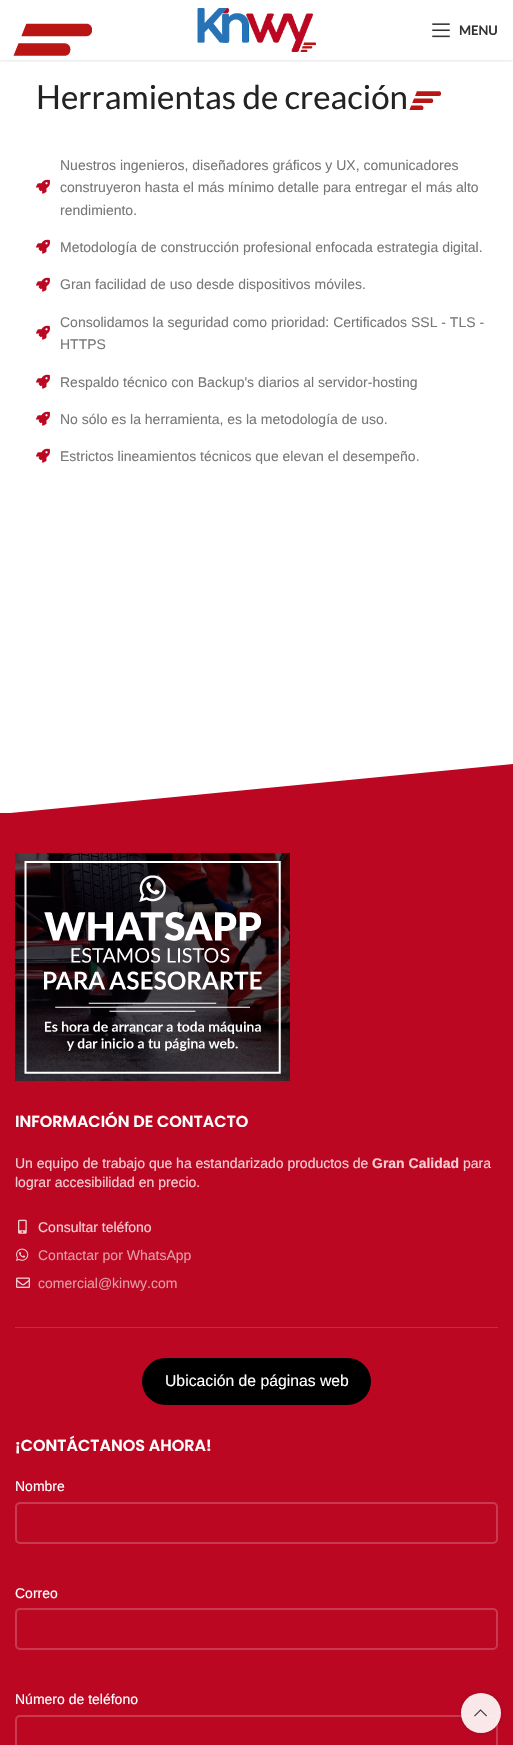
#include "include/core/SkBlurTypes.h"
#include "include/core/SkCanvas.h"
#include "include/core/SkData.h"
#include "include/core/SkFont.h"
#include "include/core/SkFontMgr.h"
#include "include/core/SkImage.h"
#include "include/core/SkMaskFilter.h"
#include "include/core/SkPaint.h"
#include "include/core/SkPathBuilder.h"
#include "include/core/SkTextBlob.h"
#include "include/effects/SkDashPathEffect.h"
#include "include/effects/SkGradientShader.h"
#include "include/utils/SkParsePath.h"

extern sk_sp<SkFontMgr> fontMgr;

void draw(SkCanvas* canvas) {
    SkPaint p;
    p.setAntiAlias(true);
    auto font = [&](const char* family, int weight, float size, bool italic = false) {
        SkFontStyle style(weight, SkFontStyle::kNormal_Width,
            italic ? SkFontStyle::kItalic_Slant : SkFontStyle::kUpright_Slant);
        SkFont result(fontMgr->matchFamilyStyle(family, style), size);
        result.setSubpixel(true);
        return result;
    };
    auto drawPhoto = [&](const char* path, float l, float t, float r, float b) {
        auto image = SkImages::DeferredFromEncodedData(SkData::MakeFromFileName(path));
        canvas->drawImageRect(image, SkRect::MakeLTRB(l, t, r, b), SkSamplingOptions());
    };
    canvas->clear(0xFFFFFFFF);
    canvas->save();
    canvas->clipRect(SkRect::MakeLTRB(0, 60, 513, 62));
    p.setColor(0x1A000000);
    p.setMaskFilter(SkMaskFilter::MakeBlur(kNormal_SkBlurStyle, 1.5f));
    canvas->drawRect(SkRect::MakeLTRB(0, 1, 513, 61), p);
    p.setMaskFilter(nullptr);
    canvas->restore();
    drawPhoto("media/1.png", 13, 23, 92, 56);
    drawPhoto("media/2.png", 197, 8, 316, 52);
    drawPhoto("media/3.png", 432, 23, 450, 38);
    auto font1 = font("Lato", 700, 13);
    p.setColor(0xFF333333);
    canvas->drawString("MENU", 459, 35, font1, p);
    auto font2 = font("Lato", 400, 33);
    p.setColor(0xFF232323);
    canvas->drawString("Herramientas de creación", 36, 109, font2, p);
    drawPhoto("media/4.png", 409, 91, 441, 110);
    drawPhoto("media/5.png", 36, 179, 50, 194);
    auto font3 = font("Liberation Sans", 400, 14);
    p.setColor(0xFF777777);
    {
        const struct { const char* s; float x, y; } items[] = {
            {"Nuestros ingenieros, diseñadores gráficos y UX, comunicadores", 60, 170},
            {"construyeron hasta el más mínimo detalle para entregar el más alto", 60, 192},
            {"rendimiento.", 60, 215},
        };
        for (auto [s, x, y] : items) {
            canvas->drawString(s, x, y, font3, p);
        }
    }
    drawPhoto("media/5.png", 36, 239, 50, 254);
    canvas->drawString("Metodología de construcción profesional enfocada estrategia digital.", 60, 252, font3, p);
    drawPhoto("media/5.png", 36, 277, 50, 292);
    canvas->drawString("Gran facilidad de uso desde dispositivos móviles.", 60, 289, font3, p);
    drawPhoto("media/5.png", 36, 325, 50, 340);
    canvas->drawString("Consolidamos la seguridad como prioridad: Certificados SSL - TLS -", 60, 327, font3, p);
    canvas->drawString("HTTPS", 60, 349, font3, p);
    drawPhoto("media/5.png", 36, 374, 50, 389);
    canvas->drawString("Respaldo técnico con Backup's diarios al servidor-hosting", 60, 387, font3, p);
    drawPhoto("media/5.png", 36, 411, 50, 426);
    canvas->drawString("No sólo es la herramienta, es la metodología de uso.", 60, 424, font3, p);
    drawPhoto("media/5.png", 36, 448, 50, 463);
    canvas->drawString("Estrictos lineamientos técnicos que elevan el desempeño.", 60, 461, font3, p);
    canvas->save();
    canvas->clipRect(SkRect::MakeLTRB(0, 764, 513, 813));
    p.setColor(0xFFBC0723);
    canvas->drawPath(SkPathBuilder().moveTo(0, 814).lineTo(513, 764).lineTo(513, 814).close().detach(), p);
    canvas->restore();
    canvas->drawRect(SkRect::MakeLTRB(0, 813, 513, 1745), p);
    drawPhoto("media/6.png", 15, 853, 290, 1081);
    p.setColor(0xFFC62C44);
    canvas->drawRect(SkRect::MakeLTRB(15, 1327, 498, 1328), p);
    auto font4 = font("Poppins", 600, 16);
    p.setColor(0xFFFFFFFF);
    canvas->drawString("INFORMACIÓN DE CONTACTO", 15, 1127, font4, p);
    p.setColor(0xFFF2CDD3);
    canvas->drawString("Un equipo de trabajo que ha estandarizado productos de", 15, 1168, font3, p);
    auto font5 = font("Liberation Sans", 700, 14);
    canvas->drawString("Gran Calidad", 372, 1168, font5, p);
    canvas->drawString("para", 463, 1168, font3, p);
    canvas->drawString("lograr accesibilidad en precio.", 15, 1187, font3, p);
    drawPhoto("media/7.png", 18, 1219, 27, 1234);
    canvas->drawString("Consultar teléfono", 38, 1232, font3, p);
    drawPhoto("media/8.png", 16, 1248, 29, 1261);
    p.setColor(0xFFE49CA7);
    canvas->drawString("Contactar por WhatsApp", 38, 1260, font3, p);
    drawPhoto("media/9.png", 16, 1277, 30, 1288);
    canvas->drawString("comercial@kinwy.com", 38, 1288, font3, p);
    p.setColor(0xFF000000);
    canvas->drawRoundRect(SkRect::MakeLTRB(142, 1358, 371, 1405), 23.5f, 23.5f, p);
    auto font6 = font("Liberation Sans", 400, 15.75f);
    p.setColor(0xFFFFFFFF);
    canvas->drawString("Ubicación de páginas web", 165, 1386, font6, p);
    canvas->drawString("¡CONTÁCTANOS AHORA!", 15, 1451, font4, p);
    canvas->drawString("Nombre", 15, 1491, font3, p);
    p.setStyle(SkPaint::kStroke_Style);
    p.setStrokeWidth(2);
    p.setColor(0xFFC9394F);
    canvas->drawRoundRect(SkRect::MakeLTRB(16, 1503, 497, 1543), 4, 4, p);
    p.setStyle(SkPaint::kFill_Style);
    p.setColor(0xFFFFFFFF);
    canvas->drawString("Correo", 15, 1598, font3, p);
    p.setStyle(SkPaint::kStroke_Style);
    p.setColor(0xFFC9394F);
    canvas->drawRoundRect(SkRect::MakeLTRB(16, 1609, 497, 1649), 4, 4, p);
    p.setStyle(SkPaint::kFill_Style);
    p.setColor(0xFFFFFFFF);
    canvas->drawString("Número de teléfono", 15, 1704, font3, p);
    p.setStyle(SkPaint::kStroke_Style);
    p.setColor(0xFFC9394F);
    canvas->drawRoundRect(SkRect::MakeLTRB(16, 1716, 497, 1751), 4, 4, p);
    canvas->save();
    canvas->clipPath(SkPathBuilder(SkPathFillType::kEvenOdd).moveTo(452, 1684).lineTo(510, 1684).lineTo(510, 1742).lineTo(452, 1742).close().moveTo(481, 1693).cubicTo(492, 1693, 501, 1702, 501, 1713).cubicTo(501, 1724, 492, 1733, 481, 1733).cubicTo(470, 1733, 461, 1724, 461, 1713).cubicTo(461, 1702, 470, 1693, 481, 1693).close().detach(), true);
    p.setStyle(SkPaint::kFill_Style);
    p.setColor(0x2B000000);
    p.setMaskFilter(SkMaskFilter::MakeBlur(kNormal_SkBlurStyle, 2.5f));
    canvas->drawRoundRect(SkRect::MakeLTRB(461, 1693, 501, 1733), 20, 20, p);
    p.setMaskFilter(nullptr);
    canvas->restore();
    p.setColor(0xE6FFFFFF);
    canvas->drawCircle(481, 1713, 20, p);
    drawPhoto("media/10.png", 474, 1709, 487, 1717);
}
